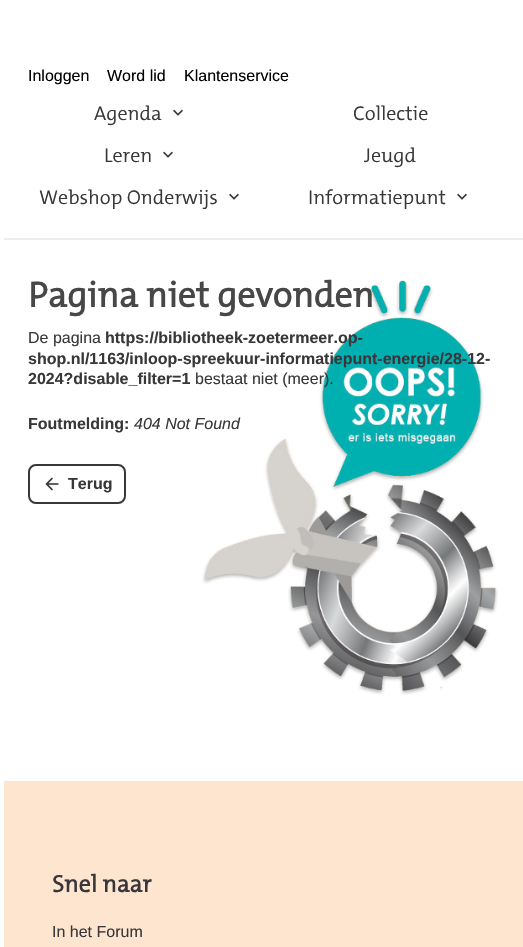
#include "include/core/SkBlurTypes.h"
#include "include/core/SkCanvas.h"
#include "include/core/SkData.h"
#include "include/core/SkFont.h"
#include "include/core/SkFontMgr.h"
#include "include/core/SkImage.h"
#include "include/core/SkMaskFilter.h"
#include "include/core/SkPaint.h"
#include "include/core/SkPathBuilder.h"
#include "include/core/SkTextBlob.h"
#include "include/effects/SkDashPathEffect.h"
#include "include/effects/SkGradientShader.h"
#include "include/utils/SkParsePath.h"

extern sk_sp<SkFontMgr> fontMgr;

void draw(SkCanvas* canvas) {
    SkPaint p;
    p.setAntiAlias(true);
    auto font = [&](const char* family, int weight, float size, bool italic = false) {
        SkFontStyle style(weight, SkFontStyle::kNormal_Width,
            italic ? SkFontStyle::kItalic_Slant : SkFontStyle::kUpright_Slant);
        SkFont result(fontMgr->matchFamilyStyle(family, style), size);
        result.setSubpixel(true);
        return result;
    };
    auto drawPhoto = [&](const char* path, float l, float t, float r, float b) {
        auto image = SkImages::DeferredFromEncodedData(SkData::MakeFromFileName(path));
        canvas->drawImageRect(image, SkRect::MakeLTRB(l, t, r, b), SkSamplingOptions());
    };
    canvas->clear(0xFFFFFFFF);
    p.setColor(0xFFEDEDED);
    canvas->drawRect(SkRect::MakeLTRB(4, 238, 523, 240), p);
    auto font1 = font("Liberation Sans", 400, 16);
    p.setColor(0xFF000000);
    {
        const struct { const char* s; float x, y; } items[] = {
            {"Inloggen", 28, 81},
            {"Word lid", 107, 81},
            {"Klantenservice", 184, 81},
        };
        for (auto [s, x, y] : items) {
            canvas->drawString(s, x, y, font1, p);
        }
    }
    auto font2 = font("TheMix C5", 300, 20);
    p.setColor(0xFF39373A);
    canvas->drawString("Agenda", 94, 120, font2, p);
    drawPhoto("media/1.png", 173, 109, 183, 116);
    canvas->drawString("Collectie", 353, 120, font2, p);
    canvas->drawString("Leren", 104, 162, font2, p);
    drawPhoto("media/1.png", 163, 151, 173, 158);
    canvas->drawString("Jeugd", 364, 162, font2, p);
    canvas->drawString("Webshop Onderwijs", 39, 204, font2, p);
    drawPhoto("media/1.png", 229, 193, 239, 200);
    canvas->drawString("Informatiepunt", 308, 204, font2, p);
    drawPhoto("media/1.png", 457, 193, 467, 200);
    drawPhoto("media/2.png", 202, 280, 498, 695);
    auto font3 = font("TheMix C5", 700, 36);
    p.setColor(0xFF474747);
    canvas->drawString("Pagina niet gevonden", 28, 307, font3, p);
    p.setColor(0xFF39373A);
    canvas->drawString("De pagina", 28, 343, font1, p);
    auto font4 = font("Liberation Sans", 700, 16);
    {
        const struct { const char* s; float x, y; } items[] = {
            {"https://bibliotheek-zoetermeer.op-", 105, 343},
            {"shop.nl/1163/inloop-spreekuur-informatiepunt-energie/28-12-", 28, 364},
            {"2024?disable_filter=1", 28, 384},
        };
        for (auto [s, x, y] : items) {
            canvas->drawString(s, x, y, font4, p);
        }
    }
    canvas->drawString("bestaat niet (meer).", 195, 384, font1, p);
    canvas->drawString("Foutmelding:", 28, 429, font4, p);
    auto font5 = font("Liberation Sans", 400, 16, true);
    canvas->drawString("404 Not Found", 134, 429, font5, p);
    p.setStyle(SkPaint::kStroke_Style);
    p.setStrokeWidth(2);
    canvas->drawRoundRect(SkRect::MakeLTRB(29, 465, 125, 503), 7, 7, p);
    drawPhoto("media/3.png", 45, 477, 59, 491);
    p.setStyle(SkPaint::kFill_Style);
    canvas->drawString("Terug", 68, 489, font4, p);
    p.setColor(0xFFFDE5D0);
    canvas->drawRect(SkRect::MakeLTRB(4, 781, 523, 947), p);
    auto font6 = font("TheMix C5", 700, 24);
    p.setColor(0xFF39373A);
    canvas->drawString("Snel naar", 52, 892, font6, p);
    canvas->drawString("In het Forum", 52, 937, font1, p);
}
